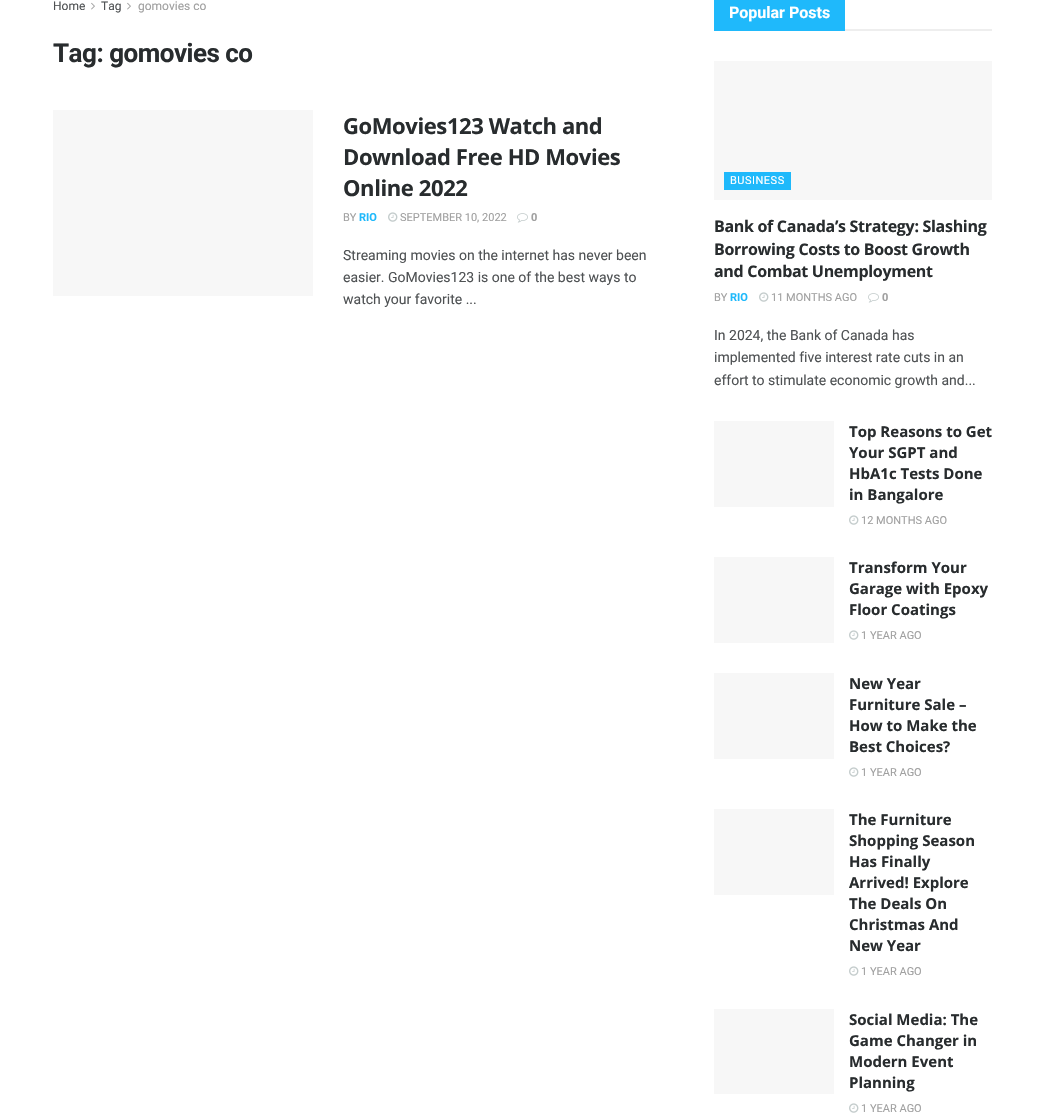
#include "include/core/SkBlurTypes.h"
#include "include/core/SkCanvas.h"
#include "include/core/SkData.h"
#include "include/core/SkFont.h"
#include "include/core/SkFontMgr.h"
#include "include/core/SkImage.h"
#include "include/core/SkMaskFilter.h"
#include "include/core/SkPaint.h"
#include "include/core/SkPathBuilder.h"
#include "include/core/SkTextBlob.h"
#include "include/effects/SkDashPathEffect.h"
#include "include/effects/SkGradientShader.h"
#include "include/utils/SkParsePath.h"

extern sk_sp<SkFontMgr> fontMgr;

void draw(SkCanvas* canvas) {
    SkPaint p;
    p.setAntiAlias(true);
    auto font = [&](const char* family, int weight, float size, bool italic = false) {
        SkFontStyle style(weight, SkFontStyle::kNormal_Width,
            italic ? SkFontStyle::kItalic_Slant : SkFontStyle::kUpright_Slant);
        SkFont result(fontMgr->matchFamilyStyle(family, style), size);
        result.setSubpixel(true);
        return result;
    };
    auto drawTracked = [&](const char* s, float x, float y, const SkFont& font, const SkPaint& ink, float letter, float word) {
        std::vector<SkGlyphID> glyphs(font.countText(s, strlen(s), SkTextEncoding::kUTF8));
        std::vector<float> xs(glyphs.size());
        font.textToGlyphs(s, strlen(s), SkTextEncoding::kUTF8, glyphs);
        font.getXPos(glyphs, xs, x);
        float extra = 0;
        for (size_t i = 0; i < glyphs.size(); i++) {
            xs[i] += extra;
            extra += letter + word * (glyphs[i] == font.unicharToGlyph(' '));
        }
        canvas->drawTextBlob(SkTextBlob::MakeFromPosHGlyphs(glyphs, xs, y, font), 0, 0, ink);
    };
    auto drawPhoto = [&](const char* path, float l, float t, float r, float b) {
        auto image = SkImages::DeferredFromEncodedData(SkData::MakeFromFileName(path));
        canvas->drawImageRect(image, SkRect::MakeLTRB(l, t, r, b), SkSamplingOptions());
    };
    canvas->clear(0xFFFFFFFF);
    auto font1 = font("Roboto", 400, 12);
    p.setColor(0xFF4F5254);
    canvas->drawString("Home", 53, 10, font1, p);
    drawPhoto("media/1.png", 91, 2, 95, 10);
    canvas->drawString("Tag", 101, 10, font1, p);
    drawPhoto("media/1.png", 127, 2, 131, 10);
    p.setColor(0xFFA0A0A0);
    canvas->drawString("gomovies co", 138, 10, font1, p);
    auto font2 = font("Roboto", 700, 26);
    p.setColor(0xFF282C2E);
    drawTracked("Tag: gomovies co", 53, 62, font2, p, -0.5f, 0);
    p.setColor(0xFFF7F7F7);
    canvas->drawRect(SkRect::MakeLTRB(53, 110, 313, 296), p);
    auto font3 = font("Open Sans", 700, 22);
    p.setColor(0xFF282C2E);
    {
        const struct { const char* s; float x, y; } items[] = {
            {"GoMovies123 Watch and", 343, 134},
            {"Download Free HD Movies", 343, 165},
            {"Online 2022", 343, 196},
        };
        for (auto [s, x, y] : items) {
            drawTracked(s, x, y, font3, p, -0.4f, 0);
        }
    }
    auto font4 = font("Roboto", 400, 11);
    p.setColor(0xFFA0A0A0);
    canvas->drawString("BY", 343, 221, font4, p);
    auto font5 = font("Roboto", 700, 11);
    p.setColor(0xFF1FB9FB);
    canvas->drawString("RIO", 359, 221, font5, p);
    drawPhoto("media/2.png", 388, 212, 398, 222);
    p.setColor(0xFFA0A0A0);
    canvas->drawString("SEPTEMBER 10, 2022", 400, 221, font4, p);
    drawPhoto("media/3.png", 517, 213, 528, 223);
    canvas->drawString("0", 531, 221, font5, p);
    auto font6 = font("Roboto", 400, 14);
    p.setColor(0xFF4F5254);
    {
        const struct { const char* s; float x, y; } items[] = {
            {"Streaming movies on the internet has never been", 343, 260},
            {"easier. GoMovies123 is one of the best ways to", 343, 282},
            {"watch your favorite ...", 343, 304},
        };
        for (auto [s, x, y] : items) {
            canvas->drawString(s, x, y, font6, p);
        }
    }
    p.setColor(0xFFEEEEEE);
    canvas->drawRect(SkRect::MakeLTRB(845, 29, 992, 31), p);
    p.setColor(0xFF1FB9FB);
    canvas->drawRect(SkRect::MakeLTRB(714, 0, 845, 31), p);
    auto font7 = font("Roboto", 700, 16);
    p.setColor(0xFFFFFFFF);
    canvas->drawString("Popular Posts", 729, 18, font7, p);
    p.setColor(0xFFF7F7F7);
    canvas->drawRect(SkRect::MakeLTRB(714, 61, 992, 200), p);
    p.setColor(0xFF1FB9FB);
    canvas->drawRect(SkRect::MakeLTRB(724, 172, 791, 190), p);
    p.setColor(0xFFFFFFFF);
    drawTracked("BUSINESS", 730, 184, font4, p, 0.5f, 0);
    auto font8 = font("Open Sans", 700, 16);
    p.setColor(0xFF282C2E);
    {
        const struct { const char* s; float x, y; } items[] = {
            {"Bank of Canada’s Strategy: Slashing", 714, 232},
            {"Borrowing Costs to Boost Growth", 714, 255},
            {"and Combat Unemployment", 714, 277},
        };
        for (auto [s, x, y] : items) {
            drawTracked(s, x, y, font8, p, -0.3f, 0);
        }
    }
    p.setColor(0xFFA0A0A0);
    canvas->drawString("BY", 714, 301, font4, p);
    p.setColor(0xFF1FB9FB);
    canvas->drawString("RIO", 730, 301, font5, p);
    drawPhoto("media/2.png", 759, 292, 769, 302);
    p.setColor(0xFFA0A0A0);
    canvas->drawString("11 MONTHS AGO", 771, 301, font4, p);
    drawPhoto("media/3.png", 868, 293, 879, 303);
    canvas->drawString("0", 882, 301, font5, p);
    p.setColor(0xFF4F5254);
    {
        const struct { const char* s; float x, y; } items[] = {
            {"In 2024, the Bank of Canada has", 714, 340},
            {"implemented five interest rate cuts in an", 714, 362},
            {"effort to stimulate economic growth and...", 714, 385},
        };
        for (auto [s, x, y] : items) {
            canvas->drawString(s, x, y, font6, p);
        }
    }
    p.setColor(0xFFF7F7F7);
    canvas->drawRect(SkRect::MakeLTRB(714, 421, 834, 507), p);
    auto font9 = font("Open Sans", 700, 15);
    p.setColor(0xFF282C2E);
    {
        const struct { const char* s; float x, y; } items[] = {
            {"Top Reasons to Get", 849, 437},
            {"Your SGPT and", 849, 458},
            {"HbA1c Tests Done", 849, 479},
            {"in Bangalore", 849, 500},
        };
        for (auto [s, x, y] : items) {
            canvas->drawString(s, x, y, font9, p);
        }
    }
    drawPhoto("media/2.png", 849, 515, 859, 525);
    p.setColor(0xFFA0A0A0);
    canvas->drawString("12 MONTHS AGO", 861, 524, font4, p);
    p.setColor(0xFFF7F7F7);
    canvas->drawRect(SkRect::MakeLTRB(714, 557, 834, 643), p);
    p.setColor(0xFF282C2E);
    {
        const struct { const char* s; float x, y; } items[] = {
            {"Transform Your", 849, 573},
            {"Garage with Epoxy", 849, 594},
            {"Floor Coatings", 849, 615},
        };
        for (auto [s, x, y] : items) {
            canvas->drawString(s, x, y, font9, p);
        }
    }
    drawPhoto("media/2.png", 849, 630, 859, 640);
    p.setColor(0xFFA0A0A0);
    canvas->drawString("1 YEAR AGO", 861, 639, font4, p);
    p.setColor(0xFFF7F7F7);
    canvas->drawRect(SkRect::MakeLTRB(714, 673, 834, 759), p);
    p.setColor(0xFF282C2E);
    {
        const struct { const char* s; float x, y; } items[] = {
            {"New Year", 849, 689},
            {"Furniture Sale –", 849, 710},
            {"How to Make the", 849, 731},
            {"Best Choices?", 849, 752},
        };
        for (auto [s, x, y] : items) {
            canvas->drawString(s, x, y, font9, p);
        }
    }
    drawPhoto("media/2.png", 849, 767, 859, 777);
    p.setColor(0xFFA0A0A0);
    canvas->drawString("1 YEAR AGO", 861, 776, font4, p);
    p.setColor(0xFFF7F7F7);
    canvas->drawRect(SkRect::MakeLTRB(714, 809, 834, 895), p);
    p.setColor(0xFF282C2E);
    {
        const struct { const char* s; float x, y; } items[] = {
            {"The Furniture", 849, 825},
            {"Shopping Season", 849, 846},
            {"Has Finally", 849, 867},
            {"Arrived! Explore", 849, 888},
            {"The Deals On", 849, 909},
            {"Christmas And", 849, 930},
            {"New Year", 849, 951},
        };
        for (auto [s, x, y] : items) {
            canvas->drawString(s, x, y, font9, p);
        }
    }
    drawPhoto("media/2.png", 849, 966, 859, 976);
    p.setColor(0xFFA0A0A0);
    canvas->drawString("1 YEAR AGO", 861, 975, font4, p);
    p.setColor(0xFFF7F7F7);
    canvas->drawRect(SkRect::MakeLTRB(714, 1009, 834, 1094), p);
    p.setColor(0xFF282C2E);
    {
        const struct { const char* s; float x, y; } items[] = {
            {"Social Media: The", 849, 1025},
            {"Game Changer in", 849, 1046},
            {"Modern Event", 849, 1067},
            {"Planning", 849, 1088},
        };
        for (auto [s, x, y] : items) {
            canvas->drawString(s, x, y, font9, p);
        }
    }
    drawPhoto("media/2.png", 849, 1103, 859, 1113);
    p.setColor(0xFFA0A0A0);
    canvas->drawString("1 YEAR AGO", 861, 1112, font4, p);
}
